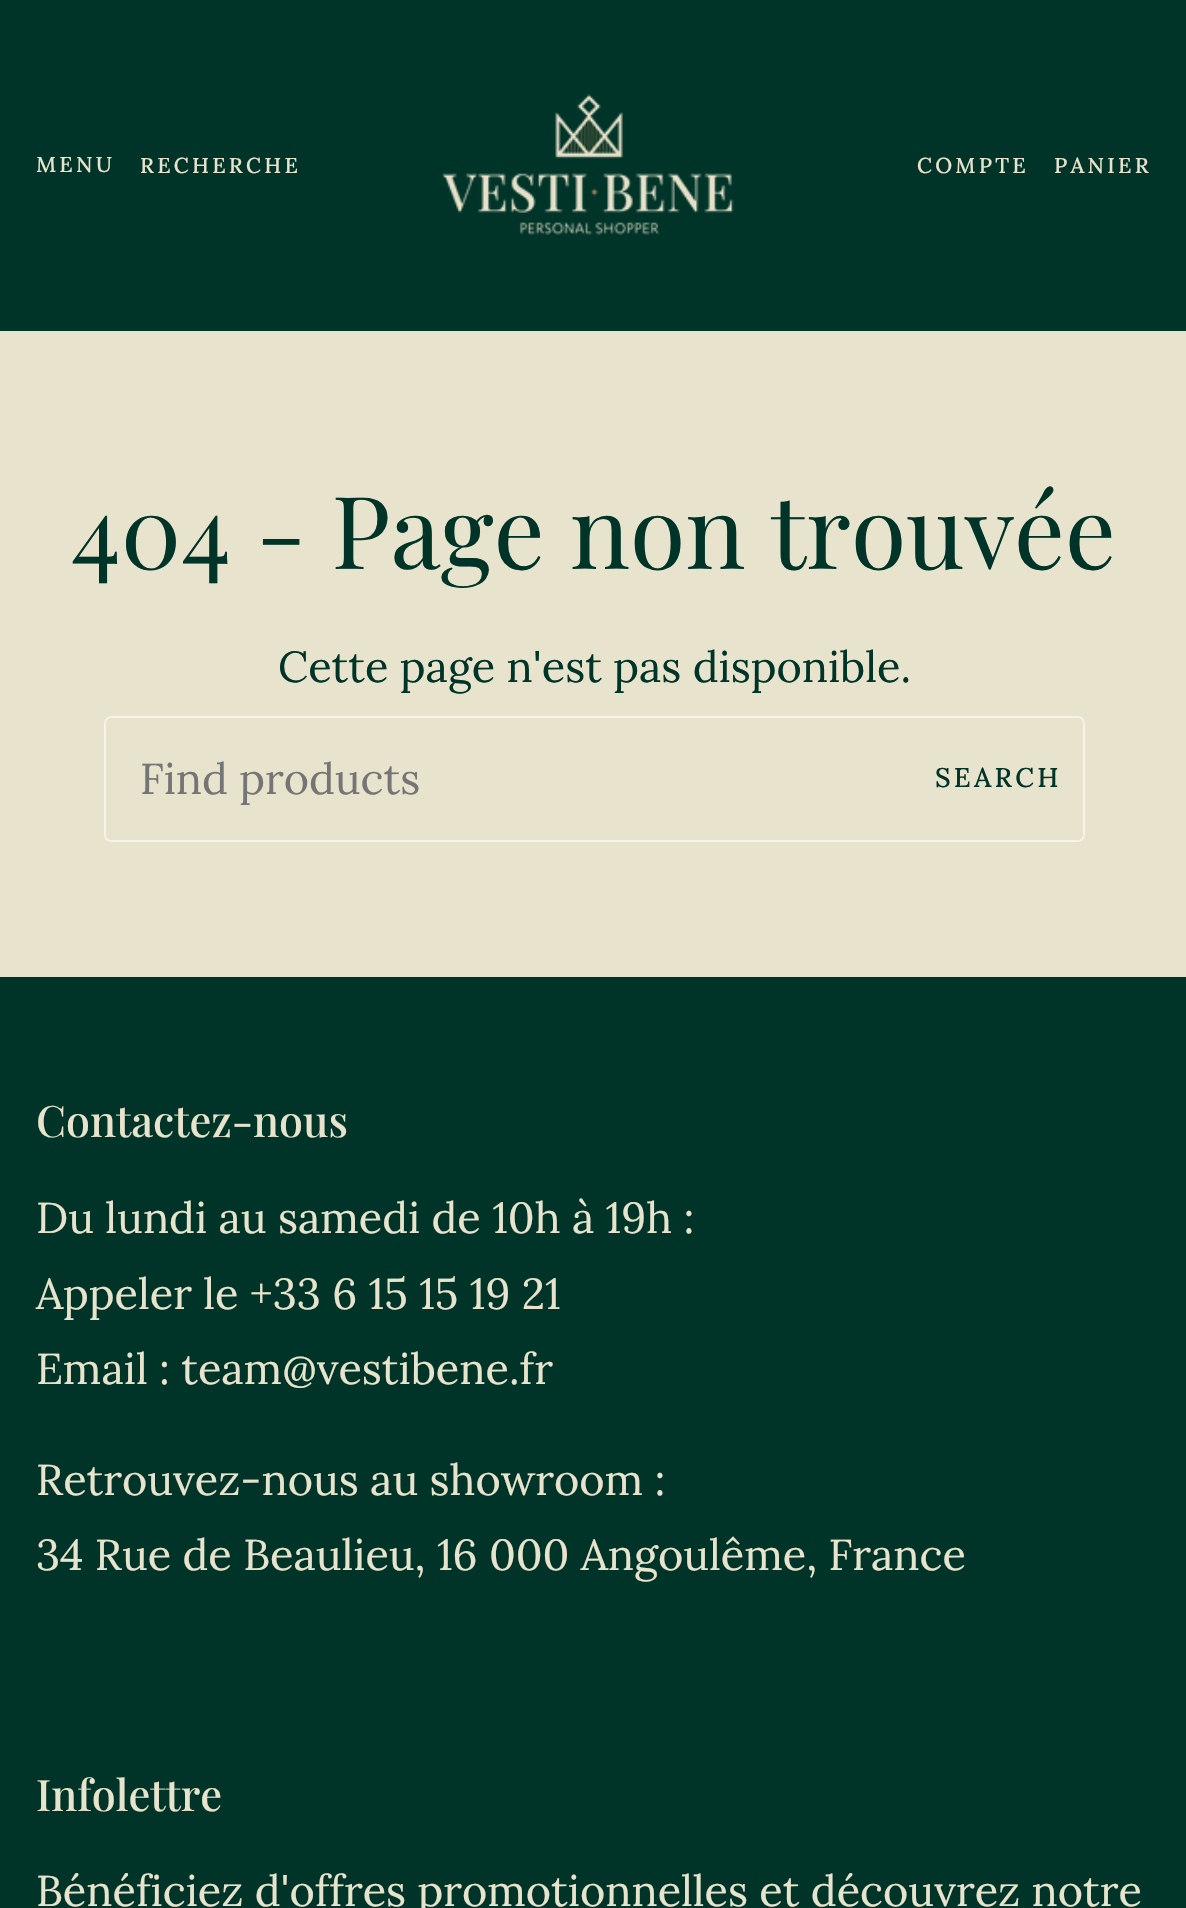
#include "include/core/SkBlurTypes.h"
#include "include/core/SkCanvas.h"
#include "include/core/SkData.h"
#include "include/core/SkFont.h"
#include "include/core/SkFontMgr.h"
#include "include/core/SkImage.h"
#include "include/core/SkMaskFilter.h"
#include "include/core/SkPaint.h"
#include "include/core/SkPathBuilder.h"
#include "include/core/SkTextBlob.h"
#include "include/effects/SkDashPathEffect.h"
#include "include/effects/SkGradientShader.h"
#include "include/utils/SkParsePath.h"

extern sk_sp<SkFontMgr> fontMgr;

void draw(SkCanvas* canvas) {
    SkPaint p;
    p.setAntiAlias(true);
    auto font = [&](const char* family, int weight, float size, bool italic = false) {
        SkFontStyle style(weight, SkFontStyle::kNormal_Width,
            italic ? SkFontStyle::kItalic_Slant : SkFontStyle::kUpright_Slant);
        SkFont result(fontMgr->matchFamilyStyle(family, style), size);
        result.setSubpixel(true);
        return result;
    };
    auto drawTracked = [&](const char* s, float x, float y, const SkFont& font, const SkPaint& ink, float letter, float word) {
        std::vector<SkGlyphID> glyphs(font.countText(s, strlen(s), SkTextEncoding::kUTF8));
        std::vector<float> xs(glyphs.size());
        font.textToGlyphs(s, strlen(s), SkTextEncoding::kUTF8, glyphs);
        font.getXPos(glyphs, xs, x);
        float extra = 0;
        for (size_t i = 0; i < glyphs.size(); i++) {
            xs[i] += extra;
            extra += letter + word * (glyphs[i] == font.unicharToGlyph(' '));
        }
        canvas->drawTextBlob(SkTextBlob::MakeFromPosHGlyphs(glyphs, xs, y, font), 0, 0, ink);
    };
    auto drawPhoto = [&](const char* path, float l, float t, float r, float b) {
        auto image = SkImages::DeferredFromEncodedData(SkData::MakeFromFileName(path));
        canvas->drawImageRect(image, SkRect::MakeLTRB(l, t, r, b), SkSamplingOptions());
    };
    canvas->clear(0xFFE8E3CC);
    p.setColor(0xFF003428);
    canvas->drawRect(SkRect::MakeLTRB(0, 0, 1186, 331), p);
    auto font1 = font("Lora", 500, 21.5f);
    p.setColor(0xFFE8E3CC);
    drawTracked("MENU", 36, 172, font1, p, 3.25f, 0);
    drawTracked("RECHERCHE", 140, 173, font1, p, 3.25f, 0);
    drawPhoto("media/1.png", 442, 94, 734, 235);
    drawTracked("COMPTE", 917, 173, font1, p, 3.25f, 0);
    drawTracked("PANIER", 1054, 173, font1, p, 3.25f, 0);
    auto font2 = font("Playfair Display", 400, 100.75f);
    p.setColor(0xFF003428);
    canvas->drawString("404 - Page non trouvée", 71, 569, font2, p);
    auto font3 = font("Lora", 400, 43.2f);
    canvas->drawString("Cette page n'est pas disponible.", 278, 682, font3, p);
    p.setStyle(SkPaint::kStroke_Style);
    p.setStrokeWidth(2);
    p.setColor(0xFFF5F3EA);
    canvas->drawRoundRect(SkRect::MakeLTRB(105, 717, 1084, 841), 6, 6, p);
    p.setStyle(SkPaint::kFill_Style);
    p.setColor(0xFF757575);
    canvas->drawString("Find products", 140, 794, font3, p);
    auto font4 = font("Lora", 500, 27);
    p.setColor(0xFF003428);
    drawTracked("SEARCH", 935, 787, font4, p, 3.25f, 0);
    canvas->drawRect(SkRect::MakeLTRB(0, 977, 1186, 1908), p);
    auto font5 = font("Playfair Display", 500, 43.2f);
    p.setColor(0xFFE8E3CC);
    canvas->drawString("Contactez-nous", 36, 1137, font5, p);
    {
        const struct { const char* s; float x, y; } items[] = {
            {"Du lundi au samedi de 10h à 19h :", 36, 1233},
            {"Appeler le +33 6 15 15 19 21", 36, 1309},
            {"Email : team@vestibene.fr", 36, 1384},
            {"Retrouvez-nous au showroom :", 36, 1495},
            {"34 Rue de Beaulieu, 16 000 Angoulême, France", 36, 1570},
        };
        for (auto [s, x, y] : items) {
            canvas->drawString(s, x, y, font3, p);
        }
    }
    canvas->drawString("Infolettre", 36, 1811, font5, p);
    canvas->drawString("Bénéficiez d'offres promotionnelles et découvrez notre", 36, 1906, font3, p);
}
